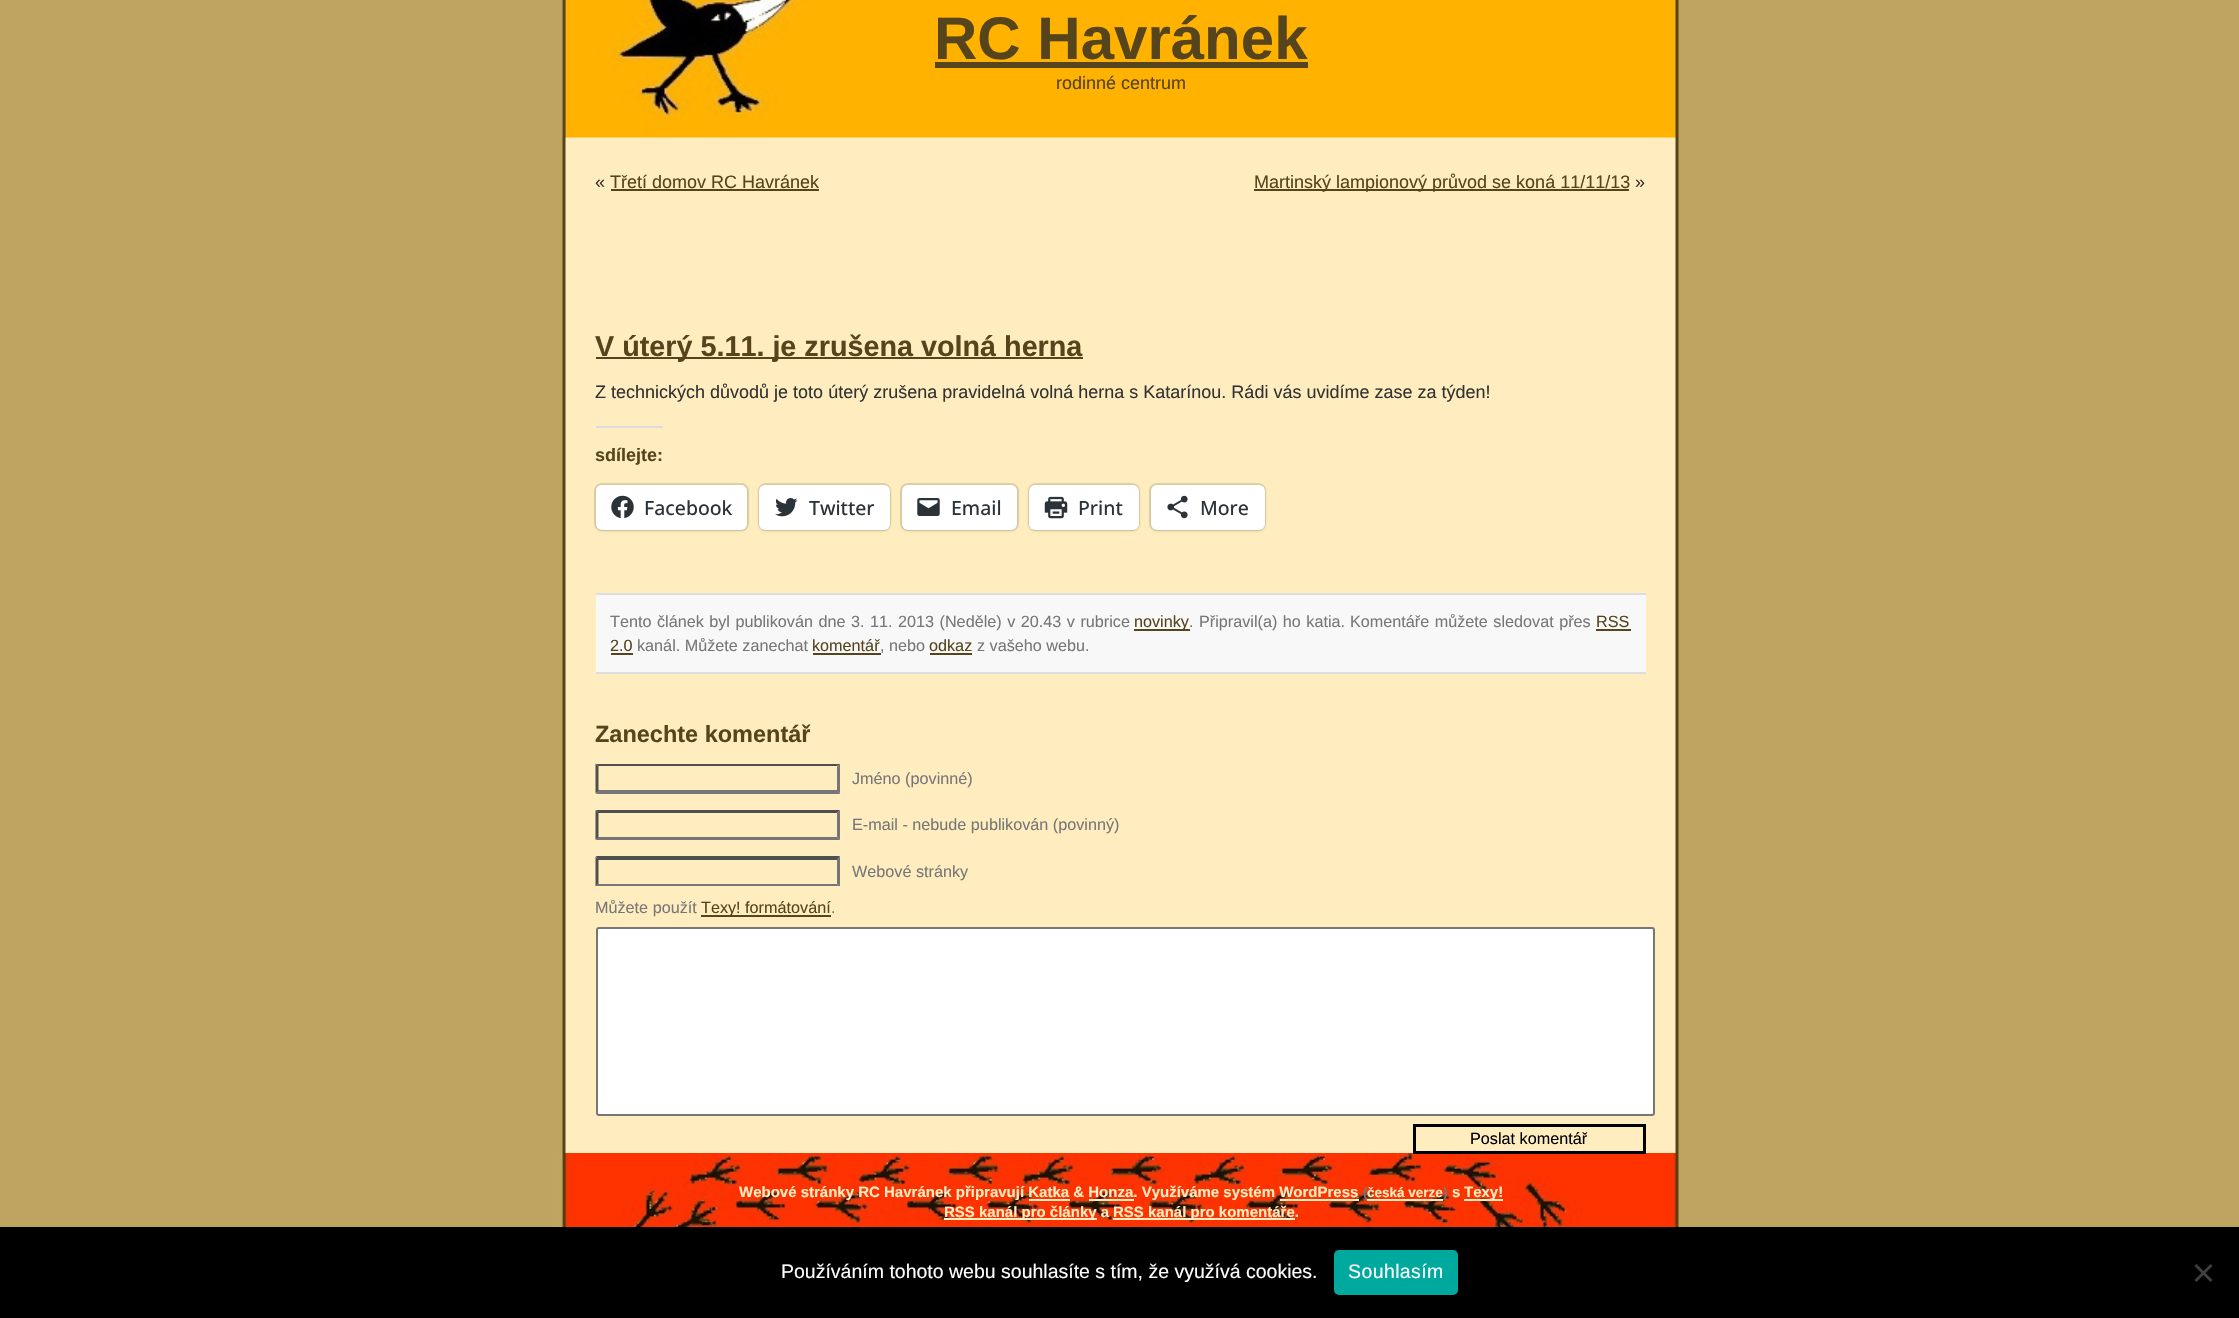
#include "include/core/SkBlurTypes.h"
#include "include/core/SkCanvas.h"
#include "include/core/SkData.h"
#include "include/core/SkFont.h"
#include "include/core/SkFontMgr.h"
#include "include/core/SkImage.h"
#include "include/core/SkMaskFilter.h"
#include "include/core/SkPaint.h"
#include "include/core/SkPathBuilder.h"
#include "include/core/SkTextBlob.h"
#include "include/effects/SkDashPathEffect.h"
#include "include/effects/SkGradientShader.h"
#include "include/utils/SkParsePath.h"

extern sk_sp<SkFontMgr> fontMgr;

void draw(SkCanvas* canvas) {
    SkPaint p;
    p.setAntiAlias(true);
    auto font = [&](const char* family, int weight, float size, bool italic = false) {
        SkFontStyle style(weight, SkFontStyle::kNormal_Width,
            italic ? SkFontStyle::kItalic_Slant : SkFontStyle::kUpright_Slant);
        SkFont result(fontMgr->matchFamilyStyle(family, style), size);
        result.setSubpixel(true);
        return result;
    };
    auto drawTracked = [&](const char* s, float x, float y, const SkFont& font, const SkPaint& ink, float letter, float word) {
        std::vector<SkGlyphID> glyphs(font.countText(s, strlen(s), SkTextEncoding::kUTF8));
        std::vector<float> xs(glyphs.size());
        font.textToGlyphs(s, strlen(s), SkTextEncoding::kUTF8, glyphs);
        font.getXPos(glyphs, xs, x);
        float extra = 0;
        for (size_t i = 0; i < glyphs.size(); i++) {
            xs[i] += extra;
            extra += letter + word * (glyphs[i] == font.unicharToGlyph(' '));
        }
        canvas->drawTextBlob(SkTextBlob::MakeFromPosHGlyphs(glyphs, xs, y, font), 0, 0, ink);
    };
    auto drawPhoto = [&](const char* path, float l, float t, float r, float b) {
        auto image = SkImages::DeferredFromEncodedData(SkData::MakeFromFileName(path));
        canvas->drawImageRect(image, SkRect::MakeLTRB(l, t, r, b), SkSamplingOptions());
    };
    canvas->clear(0xFFBFA461);
    drawPhoto("media/1.png", 562, 137, 1679, 1153);
    drawPhoto("media/2.png", 561, 0, 1680, 138);
    auto font1 = font("Liberation Sans", 700, 60);
    p.setColor(0xFF55441C);
    canvas->drawString("RC Havránek", 934, 59, font1, p);
    canvas->drawRect(SkRect::MakeLTRB(935, 62, 1308, 68), p);
    auto font2 = font("Liberation Sans", 400, 18);
    canvas->drawString("rodinné centrum", 1056, 89, font2, p);
    p.setColor(0xFF333333);
    canvas->drawString("«", 595, 188, font2, p);
    p.setColor(0xFF55441C);
    canvas->drawString("Třetí domov RC Havránek", 610, 188, font2, p);
    canvas->drawRect(SkRect::MakeLTRB(611, 189, 819, 191), p);
    canvas->drawRect(SkRect::MakeLTRB(1254, 189, 1629, 191), p);
    canvas->drawString("Martinský lampionový průvod se koná 11/11/13", 1254, 188, font2, p);
    p.setColor(0xFF333333);
    canvas->drawString("»", 1635, 188, font2, p);
    p.setColor(0xFF55441C);
    canvas->drawRect(SkRect::MakeLTRB(596, 357, 1083, 359), p);
    auto font3 = font("Liberation Sans", 700, 28.75f);
    canvas->drawString("V úterý 5.11. je zrušena volná herna", 595, 356, font3, p);
    p.setColor(0xFF333333);
    canvas->drawString("Z technických důvodů je toto úterý zrušena pravidelná volná herna s Katarínou. Rádi vás uvidíme zase za týden!", 595, 398, font2, p);
    p.setColor(0xFFDCDCDE);
    canvas->drawRect(SkRect::MakeLTRB(596, 426, 663, 428), p);
    auto font4 = font("Liberation Sans", 700, 18);
    p.setColor(0xFF55441C);
    canvas->drawString("sdílejte:", 595, 461, font4, p);
    p.setStyle(SkPaint::kStroke_Style);
    p.setStrokeWidth(2);
    p.setColor(0xFFE0D1A8);
    canvas->drawRoundRect(SkRect::MakeLTRB(595, 484, 748, 530), 7, 7, p);
    p.setStyle(SkPaint::kFill_Style);
    p.setColor(0x1F000000);
    p.setMaskFilter(SkMaskFilter::MakeBlur(kNormal_SkBlurStyle, 1.5f));
    canvas->drawRoundRect(SkRect::MakeLTRB(596, 486, 747, 531), 6, 6, p);
    p.setMaskFilter(nullptr);
    p.setColor(0xFFFFFFFF);
    canvas->drawRoundRect(SkRect::MakeLTRB(596, 485, 747, 530), 6, 6, p);
    drawPhoto("media/3.png", 611, 495, 634, 519);
    auto font5 = font("Open Sans", 500, 19.5f);
    p.setColor(0xFF2C3338);
    canvas->drawString("Facebook", 644, 515, font5, p);
    p.setStyle(SkPaint::kStroke_Style);
    p.setColor(0xFFE0D1A8);
    canvas->drawRoundRect(SkRect::MakeLTRB(759, 484, 890, 530), 7, 7, p);
    p.setStyle(SkPaint::kFill_Style);
    p.setColor(0x1F000000);
    p.setMaskFilter(SkMaskFilter::MakeBlur(kNormal_SkBlurStyle, 1.5f));
    canvas->drawRoundRect(SkRect::MakeLTRB(759, 486, 890, 531), 6, 6, p);
    p.setMaskFilter(nullptr);
    p.setColor(0xFFFFFFFF);
    canvas->drawRoundRect(SkRect::MakeLTRB(759, 485, 890, 530), 6, 6, p);
    drawPhoto("media/4.png", 775, 498, 798, 517);
    p.setColor(0xFF2C3338);
    canvas->drawString("Twitter", 809, 515, font5, p);
    p.setStyle(SkPaint::kStroke_Style);
    p.setColor(0xFFE0D1A8);
    canvas->drawRoundRect(SkRect::MakeLTRB(901, 484, 1018, 530), 7, 7, p);
    p.setStyle(SkPaint::kFill_Style);
    p.setColor(0x1F000000);
    p.setMaskFilter(SkMaskFilter::MakeBlur(kNormal_SkBlurStyle, 1.5f));
    canvas->drawRoundRect(SkRect::MakeLTRB(902, 486, 1017, 531), 6, 6, p);
    p.setMaskFilter(nullptr);
    p.setColor(0xFFFFFFFF);
    canvas->drawRoundRect(SkRect::MakeLTRB(902, 485, 1017, 530), 6, 6, p);
    drawPhoto("media/5.png", 917, 498, 940, 516);
    p.setColor(0xFF2C3338);
    canvas->drawString("Email", 951, 515, font5, p);
    p.setStyle(SkPaint::kStroke_Style);
    p.setColor(0xFFE0D1A8);
    canvas->drawRoundRect(SkRect::MakeLTRB(1029, 484, 1139, 530), 7, 7, p);
    p.setStyle(SkPaint::kFill_Style);
    p.setColor(0x1F000000);
    p.setMaskFilter(SkMaskFilter::MakeBlur(kNormal_SkBlurStyle, 1.5f));
    canvas->drawRoundRect(SkRect::MakeLTRB(1029, 486, 1139, 531), 6, 6, p);
    p.setMaskFilter(nullptr);
    p.setColor(0xFFFFFFFF);
    canvas->drawRoundRect(SkRect::MakeLTRB(1029, 485, 1139, 530), 6, 6, p);
    drawPhoto("media/6.png", 1044, 496, 1068, 519);
    p.setColor(0xFF2C3338);
    canvas->drawString("Print", 1078, 515, font5, p);
    p.setStyle(SkPaint::kStroke_Style);
    p.setColor(0xFFE0D1A8);
    canvas->drawRoundRect(SkRect::MakeLTRB(1150, 484, 1265, 530), 7, 7, p);
    p.setStyle(SkPaint::kFill_Style);
    p.setColor(0x1F000000);
    p.setMaskFilter(SkMaskFilter::MakeBlur(kNormal_SkBlurStyle, 1.5f));
    canvas->drawRoundRect(SkRect::MakeLTRB(1151, 486, 1265, 531), 6, 6, p);
    p.setMaskFilter(nullptr);
    p.setColor(0xFFFFFFFF);
    canvas->drawRoundRect(SkRect::MakeLTRB(1151, 485, 1265, 530), 6, 6, p);
    drawPhoto("media/7.png", 1167, 495, 1188, 519);
    p.setColor(0xFF2C3338);
    canvas->drawString("More", 1200, 515, font5, p);
    {
        const struct { float l, t, r, b; SkColor color; } items[] = {
            {596, 595, 1646, 672, 0xFFF8F8F8},
            {596, 593, 1646, 595, 0xFFDDDDDD},
            {596, 672, 1646, 674, 0xFFDDDDDD},
        };
        for (auto [l, t, r, b, color] : items) {
            p.setColor(color);
            canvas->drawRect(SkRect::MakeLTRB(l, t, r, b), p);
        }
    }
    auto font6 = font("Liberation Sans", 400, 16.2f);
    p.setColor(0xFF777777);
    drawTracked("Tento článek byl publikován dne 3. 11. 2013 (Neděle) v 20.43 v rubrice", 610, 627, font6, p, 0, 1);
    p.setColor(0xFF55441C);
    canvas->drawRect(SkRect::MakeLTRB(1134, 629, 1190, 631), p);
    canvas->drawString("novinky", 1134, 627, font6, p);
    p.setColor(0xFF777777);
    canvas->drawString(".", 1189, 627, font6, p);
    drawTracked("Připravil(a) ho katia.", 1199, 627, font6, p, 0, 1);
    drawTracked("Komentáře můžete sledovat přes", 1350, 627, font6, p, 0, 1);
    p.setColor(0xFF55441C);
    canvas->drawString("RSS", 1596, 627, font6, p);
    canvas->drawRect(SkRect::MakeLTRB(1596, 629, 1631, 631), p);
    canvas->drawString("2.0", 610, 651, font6, p);
    canvas->drawRect(SkRect::MakeLTRB(611, 653, 633, 655), p);
    p.setColor(0xFF777777);
    canvas->drawString("kanál. Můžete zanechat", 637, 651, font6, p);
    p.setColor(0xFF55441C);
    canvas->drawString("komentář", 812, 651, font6, p);
    p.setColor(0xFF777777);
    canvas->drawString(", nebo", 880, 651, font6, p);
    p.setColor(0xFF55441C);
    canvas->drawRect(SkRect::MakeLTRB(813, 653, 881, 655), p);
    canvas->drawString("odkaz", 929, 651, font6, p);
    canvas->drawRect(SkRect::MakeLTRB(930, 653, 972, 655), p);
    p.setColor(0xFF777777);
    canvas->drawString("z vašeho webu.", 977, 651, font6, p);
    auto font7 = font("Liberation Sans", 700, 23.5f);
    p.setColor(0xFF55441C);
    canvas->drawString("Zanechte komentář", 595, 742, font7, p);
    p.setColor(0xFF4F4F4F);
    canvas->drawPath(SkPathBuilder().moveTo(596, 764).lineTo(840, 764).lineTo(837, 766).lineTo(598, 766).close().detach(), p);
    p.setColor(0xFF767676);
    canvas->drawPath(SkPathBuilder().moveTo(840, 763.5f).lineTo(840, 793.5f).lineTo(837, 790.5f).lineTo(837, 766.5f).close().detach(), p);
    canvas->drawPath(SkPathBuilder().moveTo(840, 794).lineTo(596, 794).lineTo(598, 790).lineTo(837, 790).close().detach(), p);
    p.setColor(0xFF4F4F4F);
    canvas->drawPath(SkPathBuilder().moveTo(595.5f, 793.5f).lineTo(595.5f, 763.5f).lineTo(598.5f, 766.5f).lineTo(598.5f, 790.5f).close().detach(), p);
    p.setColor(0xFF777777);
    canvas->drawString("Jméno (povinné)", 852, 784, font6, p);
    p.setColor(0xFF4F4F4F);
    canvas->drawPath(SkPathBuilder().moveTo(596, 810).lineTo(840, 810).lineTo(837, 813).lineTo(598, 813).close().detach(), p);
    p.setColor(0xFF767676);
    canvas->drawPath(SkPathBuilder().moveTo(840, 810).lineTo(840, 840).lineTo(837, 837).lineTo(837, 813).close().detach(), p);
    canvas->drawPath(SkPathBuilder().moveTo(840, 840).lineTo(596, 840).lineTo(598, 837).lineTo(837, 837).close().detach(), p);
    p.setColor(0xFF4F4F4F);
    canvas->drawPath(SkPathBuilder().moveTo(595.5f, 840).lineTo(595.5f, 810).lineTo(598.5f, 813).lineTo(598.5f, 837).close().detach(), p);
    p.setColor(0xFF777777);
    canvas->drawString("E-mail - nebude publikován (povinný)", 852, 830, font6, p);
    p.setColor(0xFF4F4F4F);
    canvas->drawPath(SkPathBuilder().moveTo(596, 856).lineTo(840, 856).lineTo(837, 860).lineTo(598, 860).close().detach(), p);
    p.setColor(0xFF767676);
    canvas->drawPath(SkPathBuilder().moveTo(840, 856.5f).lineTo(840, 886.5f).lineTo(837, 883.5f).lineTo(837, 859.5f).close().detach(), p);
    canvas->drawPath(SkPathBuilder().moveTo(840, 886).lineTo(596, 886).lineTo(598, 884).lineTo(837, 884).close().detach(), p);
    p.setColor(0xFF4F4F4F);
    canvas->drawPath(SkPathBuilder().moveTo(595.5f, 886.5f).lineTo(595.5f, 856.5f).lineTo(598.5f, 859.5f).lineTo(598.5f, 883.5f).close().detach(), p);
    p.setColor(0xFF777777);
    canvas->drawString("Webové stránky", 852, 877, font6, p);
    canvas->drawString("Můžete použít", 595, 913, font6, p);
    p.setColor(0xFF55441C);
    canvas->drawRect(SkRect::MakeLTRB(701, 915, 831, 917), p);
    canvas->drawString("Texy! formátování", 701, 913, font6, p);
    p.setColor(0xFF777777);
    canvas->drawString(".", 831, 913, font6, p);
    p.setColor(0xFFFFFFFF);
    canvas->drawRoundRect(SkRect::MakeLTRB(597, 928, 1654, 1115), 2, 2, p);
    p.setStyle(SkPaint::kStroke_Style);
    p.setColor(0xFF767676);
    canvas->drawRoundRect(SkRect::MakeLTRB(597, 928, 1654, 1115), 2, 2, p);
    drawPhoto("media/8.png", 551, 1153, 1680, 1227);
    p.setStrokeWidth(3);
    p.setColor(0xFF000000);
    canvas->drawRect(SkRect::MakeLTRB(1414.5f, 1125.5f, 1644.5f, 1152.5f), p);
    p.setStyle(SkPaint::kFill_Style);
    canvas->drawString("Poslat komentář", 1470, 1144, font6, p);
    auto font8 = font("Liberation Sans", 700, 15);
    p.setColor(0xFFFFECBF);
    canvas->drawString("Webové stránky RC Havránek připravují Katka & Honza. Využíváme systém WordPress", 739, 1197, font8, p);
    auto font9 = font("Liberation Sans", 700, 13.5f);
    p.setColor(0xFF777777);
    canvas->drawString("(", 1363, 1197, font9, p);
    p.setColor(0xFFFFECBF);
    canvas->drawRect(SkRect::MakeLTRB(1367, 1199, 1443, 1201), p);
    canvas->drawString("česká verze", 1367, 1197, font9, p);
    p.setColor(0xFF777777);
    canvas->drawString(")", 1443, 1197, font9, p);
    p.setColor(0xFFFFECBF);
    canvas->drawString("s", 1452, 1197, font8, p);
    canvas->drawRect(SkRect::MakeLTRB(1464, 1199, 1503, 1201), p);
    canvas->drawString("Texy!", 1464, 1197, font8, p);
    {
        const struct { float l, t, r, b; SkColor color; } items[] = {
            {1029, 1199, 1070, 1201, 0xFFFFECBF},
            {1089, 1199, 1134, 1201, 0xFFFFECBF},
            {1280, 1199, 1359, 1201, 0xFFFFECBF},
            {944, 1218, 1097, 1220, 0xFFFFECBF},
        };
        for (auto [l, t, r, b, color] : items) {
            p.setColor(color);
            canvas->drawRect(SkRect::MakeLTRB(l, t, r, b), p);
        }
    }
    canvas->drawString("RSS kanál pro články a", 944, 1217, font8, p);
    canvas->drawRect(SkRect::MakeLTRB(1113, 1218, 1295, 1220), p);
    canvas->drawString("RSS kanál pro komentáře.", 1113, 1217, font8, p);
    p.setColor(0xFF000000);
    canvas->drawRect(SkRect::MakeLTRB(0, 1227, 2239, 1318), p);
    auto font10 = font("Liberation Sans", 400, 19.5f);
    p.setColor(0xFFFFFFFF);
    canvas->drawString("Používáním tohoto webu souhlasíte s tím, že využívá cookies.", 781, 1278, font10, p);
    p.setColor(0xFF00A99D);
    canvas->drawRoundRect(SkRect::MakeLTRB(1334, 1250, 1458, 1295), 5, 5, p);
    p.setColor(0xFFFFFFFF);
    drawTracked("Souhlasím", 1348, 1278, font10, p, 0.4f, 0);
    p.setColor(0xFF404040);
    canvas->drawPath(SkPathBuilder().moveTo(2210.5f, 1264).lineTo(2212.5f, 1266).lineTo(2196.5f, 1282).lineTo(2194.5f, 1280).close().detach(), p);
    canvas->drawPath(SkPathBuilder().moveTo(2194.5f, 1266).lineTo(2196.5f, 1264).lineTo(2212.5f, 1280).lineTo(2210.5f, 1282).close().detach(), p);
}
